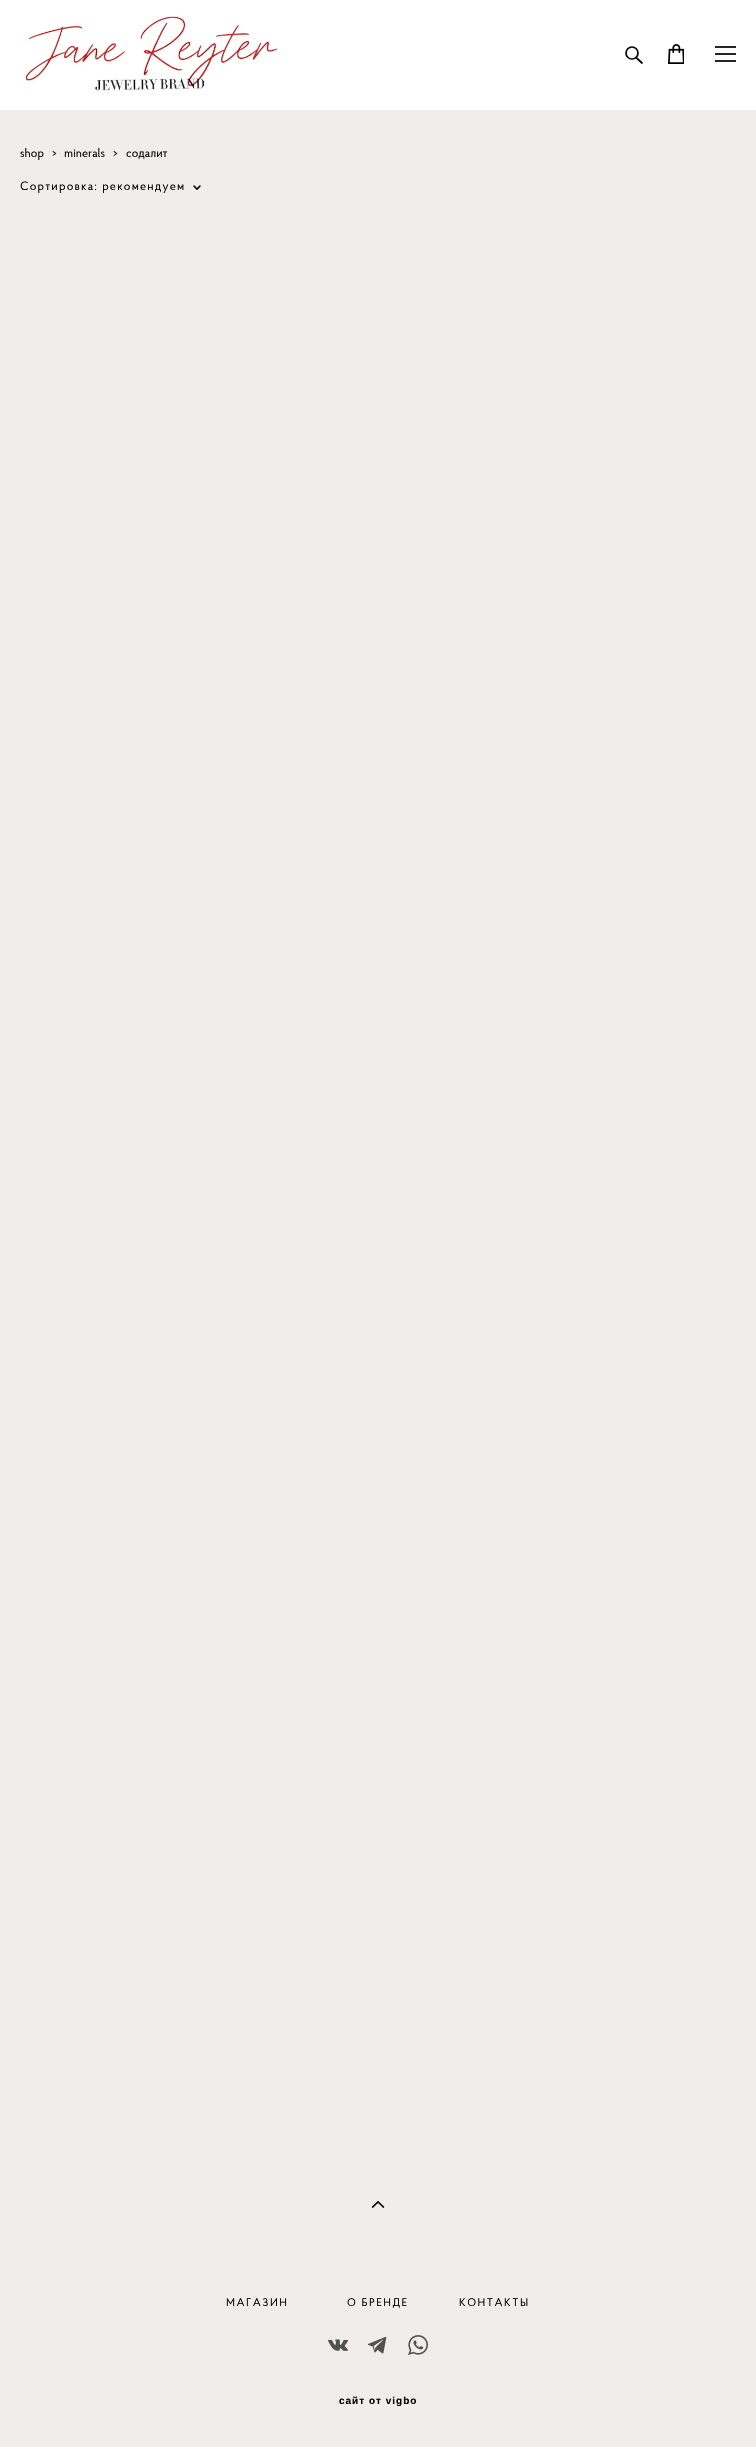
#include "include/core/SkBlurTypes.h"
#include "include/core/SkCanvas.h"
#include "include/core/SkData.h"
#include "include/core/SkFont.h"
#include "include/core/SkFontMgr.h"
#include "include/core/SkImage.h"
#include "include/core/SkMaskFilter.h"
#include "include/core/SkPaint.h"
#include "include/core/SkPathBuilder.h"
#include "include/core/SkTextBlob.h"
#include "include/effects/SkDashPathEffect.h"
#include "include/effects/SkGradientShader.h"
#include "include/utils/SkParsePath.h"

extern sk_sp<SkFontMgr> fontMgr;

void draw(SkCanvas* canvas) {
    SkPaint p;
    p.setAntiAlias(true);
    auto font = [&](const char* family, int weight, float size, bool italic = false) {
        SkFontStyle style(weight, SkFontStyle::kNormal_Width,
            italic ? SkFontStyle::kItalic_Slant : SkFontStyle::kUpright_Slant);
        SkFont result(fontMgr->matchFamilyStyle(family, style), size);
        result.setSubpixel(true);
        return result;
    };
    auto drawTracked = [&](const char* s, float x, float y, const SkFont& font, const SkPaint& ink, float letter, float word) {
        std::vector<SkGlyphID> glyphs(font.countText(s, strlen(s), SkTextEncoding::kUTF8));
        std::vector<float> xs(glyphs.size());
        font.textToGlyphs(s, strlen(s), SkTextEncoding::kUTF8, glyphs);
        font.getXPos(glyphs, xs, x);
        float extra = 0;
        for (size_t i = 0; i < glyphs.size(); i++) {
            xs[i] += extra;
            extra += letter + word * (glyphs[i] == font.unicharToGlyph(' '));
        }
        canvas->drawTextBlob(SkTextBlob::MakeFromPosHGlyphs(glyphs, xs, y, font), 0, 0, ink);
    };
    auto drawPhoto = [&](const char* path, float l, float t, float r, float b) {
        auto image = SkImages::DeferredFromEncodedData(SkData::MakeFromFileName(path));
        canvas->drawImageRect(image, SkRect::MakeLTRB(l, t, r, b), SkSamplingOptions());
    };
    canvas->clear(0xFFF0EDEB);
    p.setColor(0xFFFFFFFF);
    canvas->drawRect(SkRect::MakeLTRB(0, 0, 756, 110), p);
    drawPhoto("media/1.png", 25, 16, 278, 91);
    p.setStyle(SkPaint::kStroke_Style);
    p.setStrokeWidth(1.7f);
    p.setColor(0xFF000000);
    canvas->drawCircle(632, 53, 6, p);
    p.setStrokeCap(SkPaint::kRound_Cap);
    p.setStrokeJoin(SkPaint::kRound_Join);
    canvas->drawPath(SkPathBuilder().moveTo(636, 57.5f).lineTo(642, 63).detach(), p);
    drawPhoto("media/2.png", 668, 44, 684, 64);
    p.setStyle(SkPaint::kFill_Style);
    {
        const struct { float l, t, r, b; SkColor color; } items[] = {
            {715, 46, 736, 48, 0xFF262626},
            {715, 53, 736, 55, 0xFF262626},
            {715, 60, 736, 62, 0xFF262626},
        };
        for (auto [l, t, r, b, color] : items) {
            p.setColor(color);
            canvas->drawRect(SkRect::MakeLTRB(l, t, r, b), p);
        }
    }
    auto font1 = font("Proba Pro", 400, 12);
    p.setColor(0xFF000000);
    {
        const struct { const char* s; float x, y; } items[] = {
            {"shop", 20, 157},
            {">", 52, 157},
            {"minerals", 64, 157},
            {">", 113, 157},
            {"содалит", 126, 157},
        };
        for (auto [s, x, y] : items) {
            canvas->drawString(s, x, y, font1, p);
        }
    }
    drawTracked("Сортировка: рекомендуем", 20, 190, font1, p, 1.2f, 0);
    drawPhoto("media/3.png", 193, 185, 201, 190);
    drawPhoto("media/4.png", 371, 2200, 385, 2208);
    auto font2 = font("Proba Pro", 400, 11);
    {
        const struct { const char* s; float x, y; } items[] = {
            {"МАГАЗИН", 226, 2306},
            {"О БРЕНДЕ", 347, 2306},
            {"КОНТАКТЫ", 459, 2306},
        };
        for (auto [s, x, y] : items) {
            drawTracked(s, x, y, font2, p, 1.5f, 0);
        }
    }
    drawPhoto("media/5.png", 328, 2339, 348, 2351);
    drawPhoto("media/6.png", 368, 2336, 387, 2354);
    drawPhoto("media/7.png", 408, 2335, 428, 2355);
    auto font3 = font("Liberation Sans", 700, 10);
    drawTracked("сайт от vigbo", 339, 2404, font3, p, 1, 0);
}
